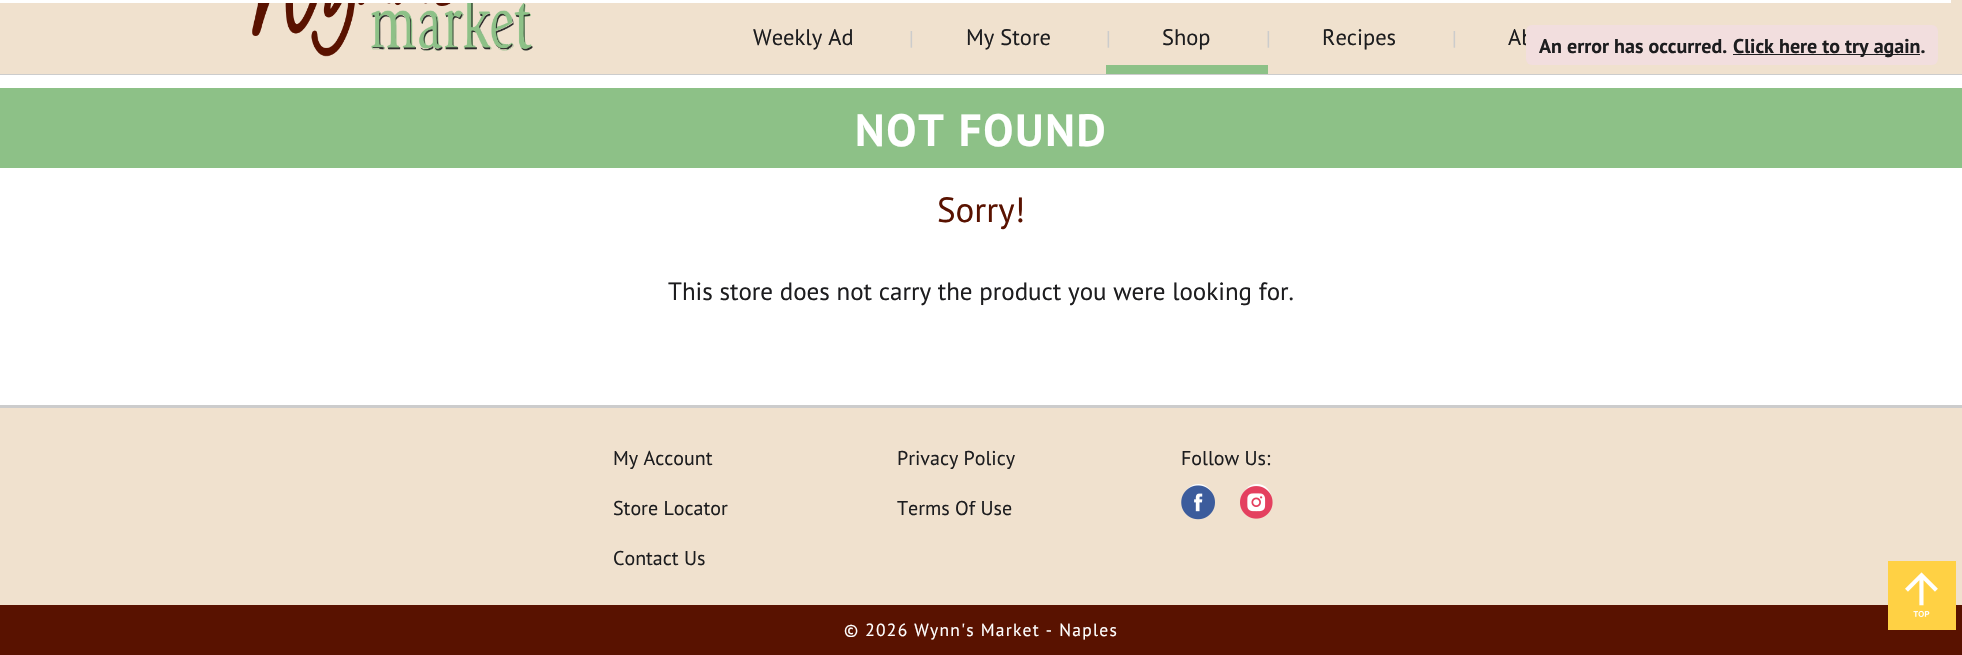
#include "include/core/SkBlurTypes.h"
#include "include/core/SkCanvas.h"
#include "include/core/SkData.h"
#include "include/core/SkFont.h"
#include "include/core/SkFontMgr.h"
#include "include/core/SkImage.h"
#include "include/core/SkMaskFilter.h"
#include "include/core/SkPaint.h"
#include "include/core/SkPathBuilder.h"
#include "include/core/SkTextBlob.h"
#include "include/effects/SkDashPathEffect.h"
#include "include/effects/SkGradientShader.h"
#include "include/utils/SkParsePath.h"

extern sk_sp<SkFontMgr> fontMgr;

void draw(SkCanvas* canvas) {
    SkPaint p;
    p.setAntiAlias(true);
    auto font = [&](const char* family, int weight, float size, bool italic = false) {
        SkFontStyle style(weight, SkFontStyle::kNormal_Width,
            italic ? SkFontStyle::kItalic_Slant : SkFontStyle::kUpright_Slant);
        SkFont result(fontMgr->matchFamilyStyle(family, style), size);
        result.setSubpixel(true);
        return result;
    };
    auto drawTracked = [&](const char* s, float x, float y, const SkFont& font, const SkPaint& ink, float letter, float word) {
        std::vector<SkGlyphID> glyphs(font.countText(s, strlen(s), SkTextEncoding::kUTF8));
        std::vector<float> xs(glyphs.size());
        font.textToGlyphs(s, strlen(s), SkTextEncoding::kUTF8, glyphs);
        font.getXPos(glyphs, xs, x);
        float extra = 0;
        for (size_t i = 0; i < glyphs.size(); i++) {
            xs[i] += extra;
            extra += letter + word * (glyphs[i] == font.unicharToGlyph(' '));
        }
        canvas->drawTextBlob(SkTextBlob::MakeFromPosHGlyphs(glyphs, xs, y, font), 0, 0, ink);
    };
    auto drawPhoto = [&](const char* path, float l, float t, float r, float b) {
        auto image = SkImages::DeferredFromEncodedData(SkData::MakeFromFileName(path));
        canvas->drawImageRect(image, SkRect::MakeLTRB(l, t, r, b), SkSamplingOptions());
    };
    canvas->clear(0xFFFFFFFF);
    p.setColor(0xFFF0E1CE);
    canvas->drawRect(SkRect::MakeLTRB(0, 0, 1962, 74), p);
    drawPhoto("media/1.png", 252, 3, 533, 57);
    p.setColor(0xFFCCCCCC);
    canvas->drawRect(SkRect::MakeLTRB(0, 74, 1962, 75), p);
    auto font1 = font("PT Sans", 400, 22.5f);
    p.setColor(0xFF1D1D1F);
    canvas->drawString("Weekly Ad", 753, 45, font1, p);
    auto font2 = font("PT Sans", 400, 20);
    p.setColor(0xFFCCCCCC);
    canvas->drawString("|", 909, 45, font2, p);
    p.setColor(0xFF1D1D1F);
    canvas->drawString("My Store", 966, 45, font1, p);
    p.setColor(0xFFCCCCCC);
    canvas->drawString("|", 1106, 45, font2, p);
    p.setColor(0xFF1D1D1F);
    canvas->drawString("Shop", 1162, 45, font1, p);
    p.setColor(0xFFCCCCCC);
    canvas->drawString("|", 1266, 45, font2, p);
    p.setColor(0xFF8DC187);
    canvas->drawRect(SkRect::MakeLTRB(1106, 65, 1268, 74), p);
    p.setColor(0xFF1D1D1F);
    canvas->drawString("Recipes", 1322, 45, font1, p);
    p.setColor(0xFFCCCCCC);
    canvas->drawString("|", 1452, 45, font2, p);
    p.setColor(0xFF1D1D1F);
    canvas->drawString("Ab", 1508, 45, font1, p);
    p.setColor(0xFF8DC187);
    canvas->drawRect(SkRect::MakeLTRB(0, 88, 1962, 168), p);
    auto font3 = font("PT Sans", 700, 45);
    p.setColor(0xFFFFFFFF);
    drawTracked("NOT FOUND", 855, 146, font3, p, 1.75f, 0);
    auto font4 = font("PT Sans", 400, 35);
    p.setColor(0xFF591200);
    canvas->drawString("Sorry!", 937, 222, font4, p);
    auto font5 = font("PT Sans", 400, 25);
    p.setColor(0xFF1D1D1F);
    canvas->drawString("This store does not carry the product you were looking for.", 668, 300, font5, p);
    p.setColor(0xFFF0E1CE);
    canvas->drawRect(SkRect::MakeLTRB(0, 408, 1962, 605), p);
    p.setColor(0xFFCCCCCC);
    canvas->drawRect(SkRect::MakeLTRB(0, 405, 1962, 408), p);
    p.setColor(0xFF1D1D1F);
    {
        const struct { const char* s; float x, y; } items[] = {
            {"My Account", 613, 465},
            {"Store Locator", 613, 515},
            {"Contact Us", 613, 565},
            {"Privacy Policy", 897, 465},
            {"Terms Of Use", 897, 515},
            {"Follow Us:", 1181, 465},
        };
        for (auto [s, x, y] : items) {
            canvas->drawString(s, x, y, font2, p);
        }
    }
    p.setColor(0xFFFFFFFF);
    canvas->drawCircle(1198.5f, 498.5f, 14.5f, p);
    drawPhoto("media/2.png", 1181, 485, 1215, 520);
    canvas->drawRoundRect(SkRect::MakeLTRB(1243, 484, 1271, 513), 14, 14, p);
    drawPhoto("media/3.png", 1240, 486, 1273, 519);
    p.setColor(0xFF591200);
    canvas->drawRect(SkRect::MakeLTRB(0, 605, 1962, 655), p);
    auto font6 = font("PT Sans", 400, 17.5f);
    p.setColor(0xFFFFFFFF);
    drawTracked("© 2026 Wynn's Market - Naples", 844, 636, font6, p, 1.25f, 0);
    p.setColor(0xFFFFD144);
    canvas->drawRect(SkRect::MakeLTRB(1888, 561, 1956, 630), p);
    drawPhoto("media/4.png", 1905, 572, 1938, 617);
    p.setColor(0xFFFFFFFF);
    canvas->drawRect(SkRect::MakeLTRB(0, 0, 1951, 3), p);
    p.setColor(0xFFF2DEDE);
    canvas->drawRoundRect(SkRect::MakeLTRB(1526, 25, 1938, 65), 6, 6, p);
    auto font7 = font("PT Sans", 700, 20);
    p.setColor(0xFF1D1D1F);
    canvas->drawString("An error has occurred.", 1539, 53, font7, p);
    canvas->drawRect(SkRect::MakeLTRB(1733, 54, 1920, 55), p);
    canvas->drawString("Click here to try again.", 1733, 53, font7, p);
}
